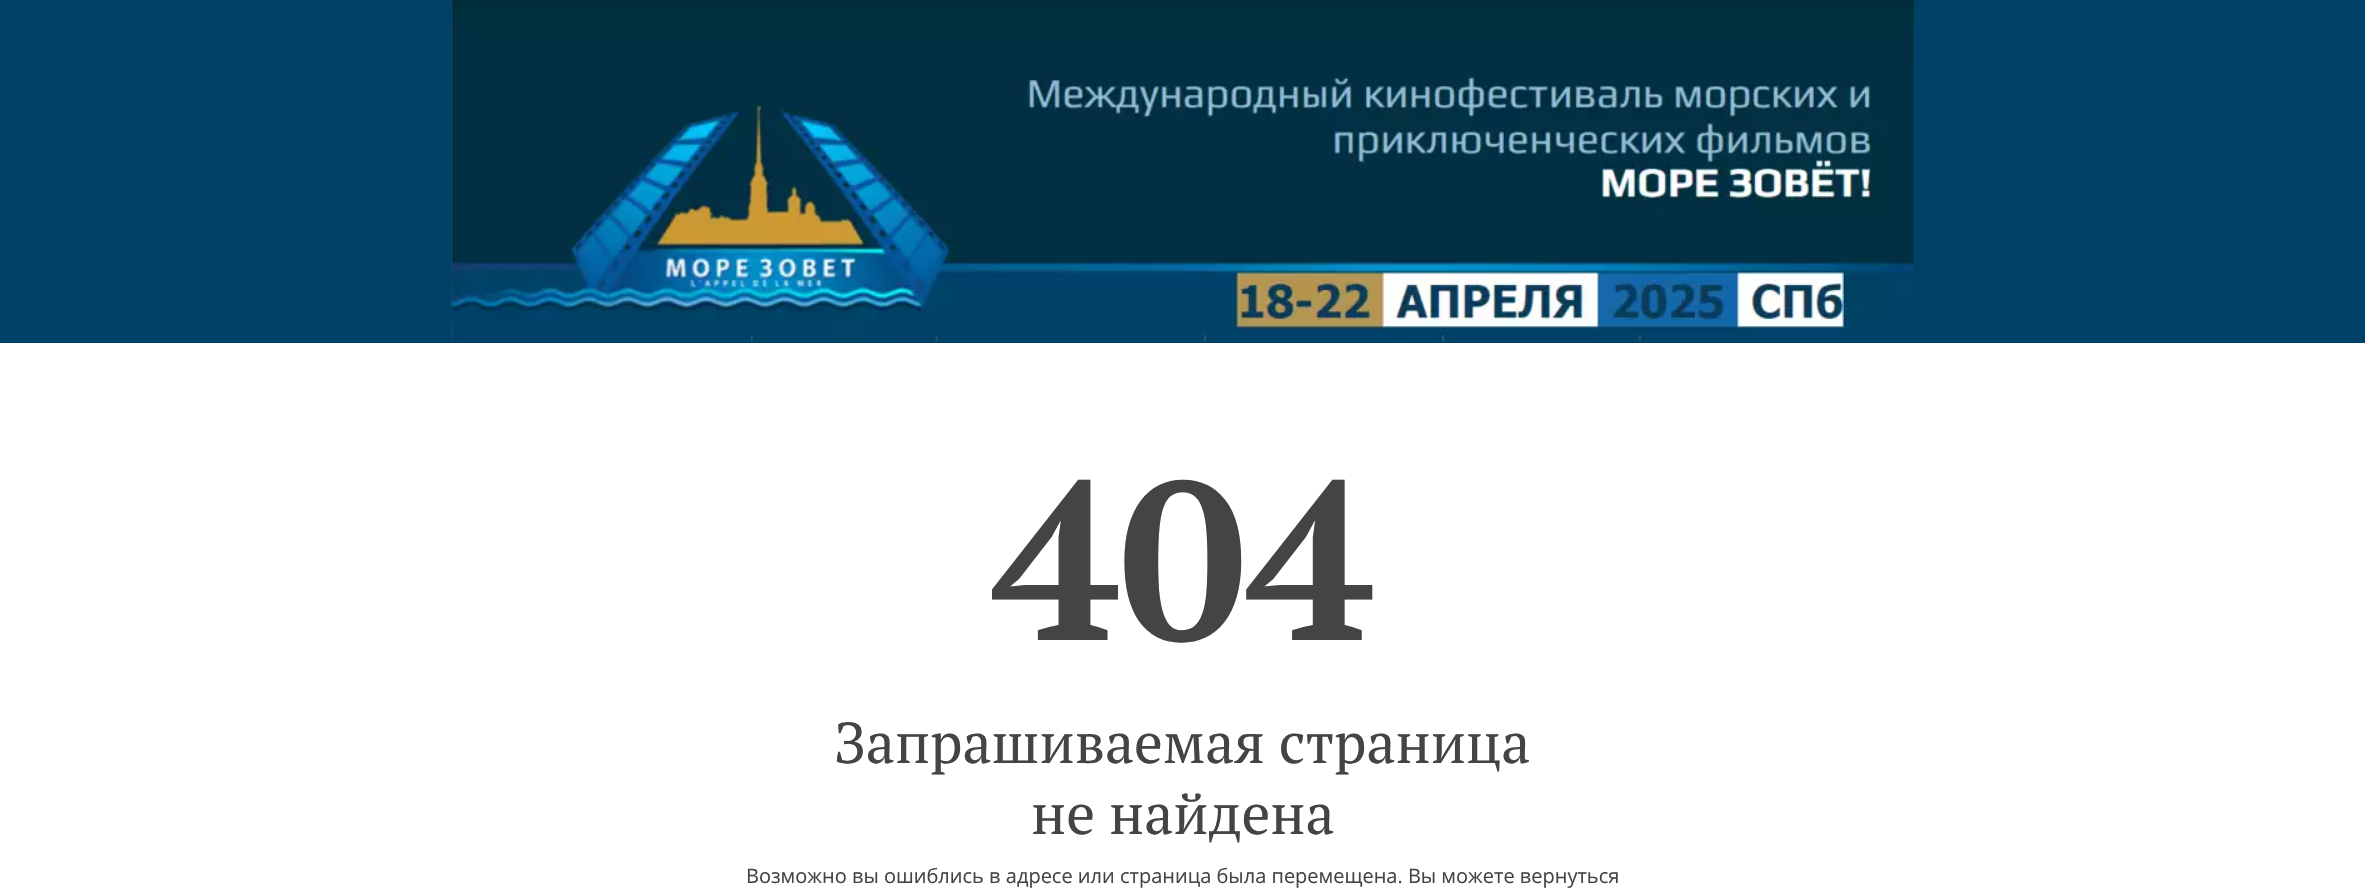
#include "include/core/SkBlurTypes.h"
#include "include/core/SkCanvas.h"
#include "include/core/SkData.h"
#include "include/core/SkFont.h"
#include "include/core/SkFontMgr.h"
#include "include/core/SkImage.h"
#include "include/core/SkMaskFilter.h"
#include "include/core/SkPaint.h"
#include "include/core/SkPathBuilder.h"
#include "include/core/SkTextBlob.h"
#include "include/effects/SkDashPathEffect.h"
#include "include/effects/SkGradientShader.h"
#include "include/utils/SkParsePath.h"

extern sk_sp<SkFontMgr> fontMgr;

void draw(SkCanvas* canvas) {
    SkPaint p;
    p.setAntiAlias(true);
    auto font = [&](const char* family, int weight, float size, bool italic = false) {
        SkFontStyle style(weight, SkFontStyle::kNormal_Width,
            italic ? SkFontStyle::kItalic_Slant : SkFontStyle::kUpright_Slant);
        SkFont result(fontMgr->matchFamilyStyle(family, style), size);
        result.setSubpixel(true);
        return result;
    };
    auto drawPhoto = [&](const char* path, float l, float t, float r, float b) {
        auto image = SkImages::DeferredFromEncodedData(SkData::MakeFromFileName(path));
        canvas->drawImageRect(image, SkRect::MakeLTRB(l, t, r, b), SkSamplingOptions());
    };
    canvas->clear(0xFF004167);
    drawPhoto("media/1.png", 451, 0, 1914, 342);
    p.setColor(0xFFFFFFFF);
    canvas->drawRect(SkRect::MakeLTRB(0, 343, 2365, 889), p);
    auto font1 = font("PT Serif", 700, 225);
    p.setColor(0xFF444444);
    canvas->drawString("404", 992, 640, font1, p);
    auto font2 = font("PT Serif", 400, 57.5f);
    canvas->drawString("Запрашиваемая страница", 834, 763, font2, p);
    canvas->drawString("не найдена", 1031, 834, font2, p);
    auto font3 = font("Open Sans", 400, 20);
    canvas->drawString("Возможно вы ошиблись в адресе или страница была перемещена. Вы можете вернуться", 746, 883, font3, p);
}
